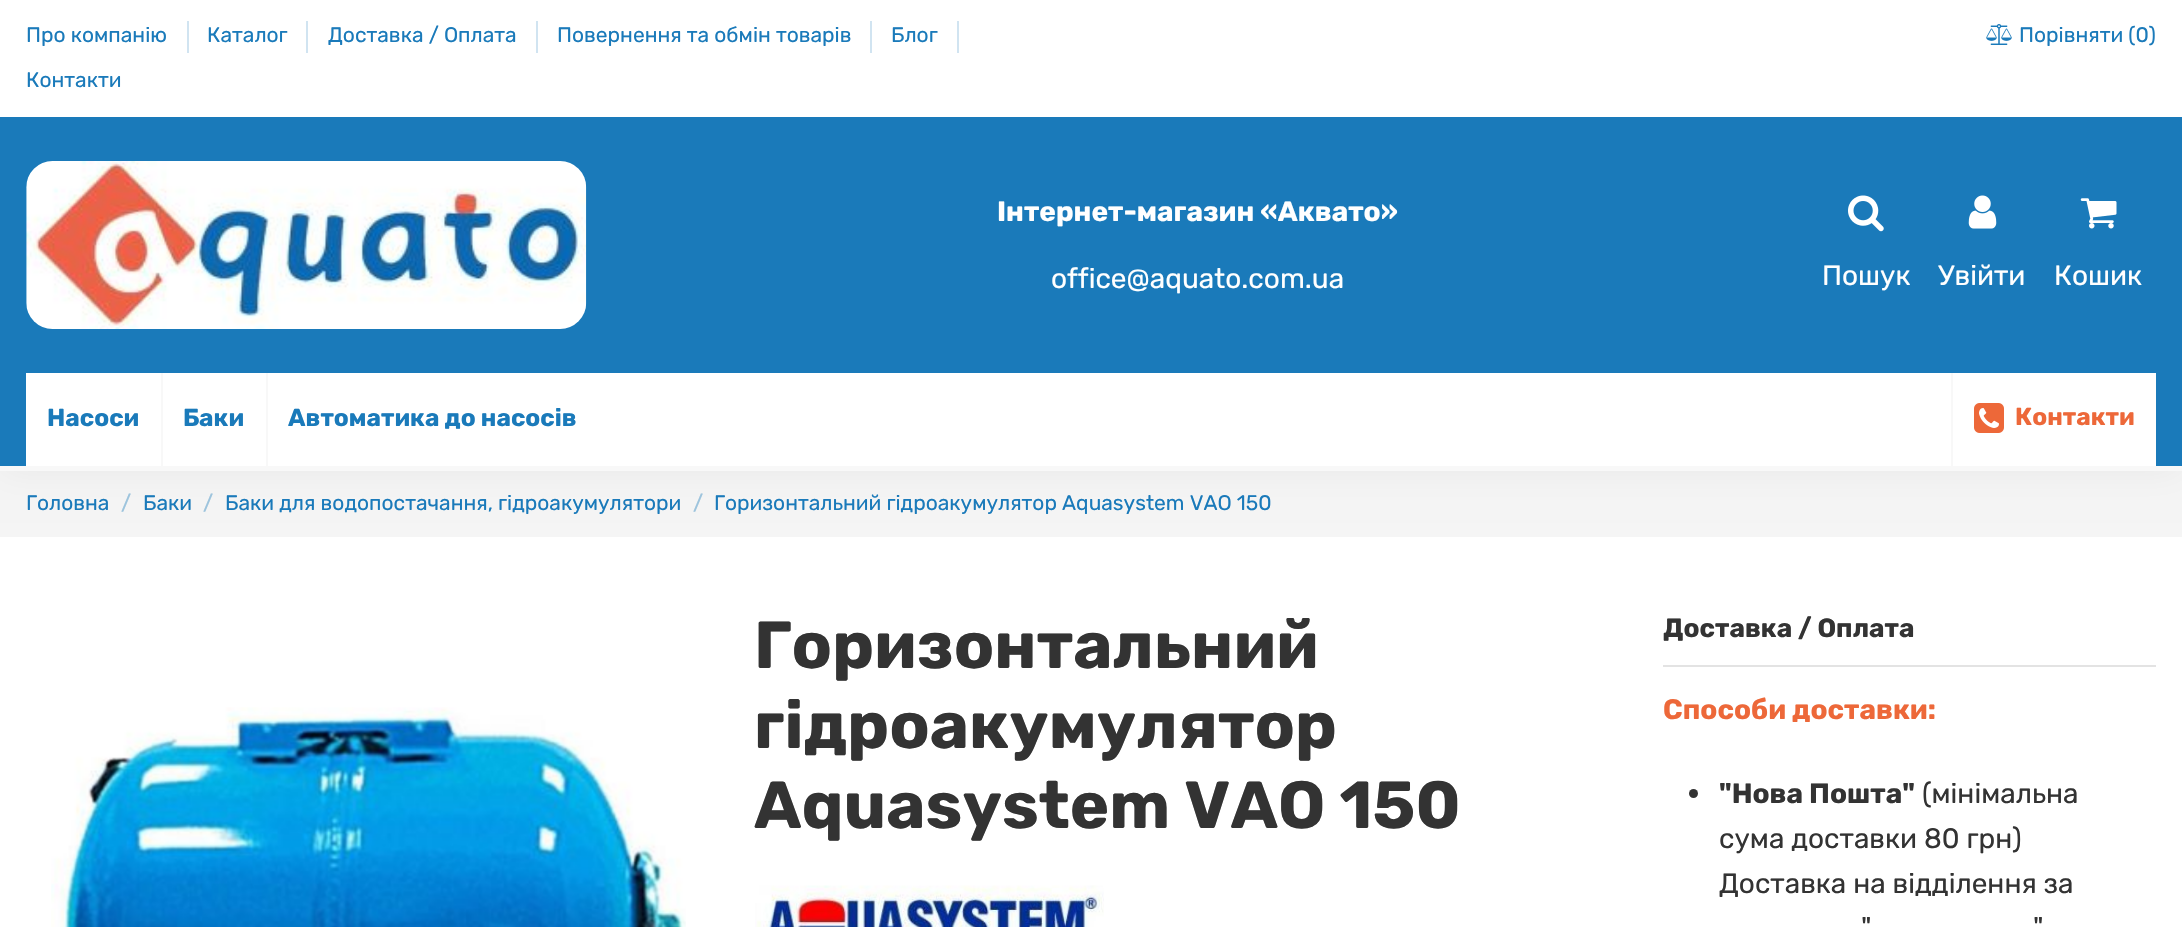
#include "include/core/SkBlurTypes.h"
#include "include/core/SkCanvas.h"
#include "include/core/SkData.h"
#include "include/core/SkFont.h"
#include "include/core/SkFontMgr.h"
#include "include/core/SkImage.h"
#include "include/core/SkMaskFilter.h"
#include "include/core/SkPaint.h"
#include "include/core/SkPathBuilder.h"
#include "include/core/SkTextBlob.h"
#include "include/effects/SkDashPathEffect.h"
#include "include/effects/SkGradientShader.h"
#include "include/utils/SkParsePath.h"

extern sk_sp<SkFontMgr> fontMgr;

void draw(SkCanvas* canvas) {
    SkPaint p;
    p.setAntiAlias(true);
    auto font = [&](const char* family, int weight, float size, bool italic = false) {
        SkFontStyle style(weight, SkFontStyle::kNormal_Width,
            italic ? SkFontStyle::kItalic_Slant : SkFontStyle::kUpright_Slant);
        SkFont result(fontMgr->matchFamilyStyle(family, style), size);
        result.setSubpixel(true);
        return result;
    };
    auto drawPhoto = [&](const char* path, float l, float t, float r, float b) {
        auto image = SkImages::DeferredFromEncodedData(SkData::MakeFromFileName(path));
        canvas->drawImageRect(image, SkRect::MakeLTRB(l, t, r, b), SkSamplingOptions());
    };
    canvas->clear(0xFFFFFFFF);
    p.setColor(0xFFF5F5F5);
    canvas->drawRect(SkRect::MakeLTRB(0, 471, 2182, 537), p);
    p.setColor(0x0D000000);
    p.setMaskFilter(SkMaskFilter::MakeBlur(kNormal_SkBlurStyle, 17.5f));
    canvas->drawRect(SkRect::MakeLTRB(0, 0, 2182, 471), p);
    p.setMaskFilter(nullptr);
    {
        const struct { float l, t, r, b; SkColor color; } items[] = {
            {0, 117, 2182, 466, 0xFF1A7ABA},
            {0, 466, 2182, 471, 0xFFF8F8F8},
            {0, 0, 2182, 117, 0xFFFFFFFF},
        };
        for (auto [l, t, r, b, color] : items) {
            p.setColor(color);
            canvas->drawRect(SkRect::MakeLTRB(l, t, r, b), p);
        }
    }
    auto font1 = font("Rubik", 400, 21);
    p.setColor(0xFF1A7ABA);
    canvas->drawString("Про компанію", 26, 42, font1, p);
    p.setColor(0xFFD1E4F1);
    canvas->drawRect(SkRect::MakeLTRB(187, 21, 189, 53), p);
    p.setColor(0xFF1A7ABA);
    canvas->drawString("Каталог", 207, 42, font1, p);
    p.setColor(0xFFD1E4F1);
    canvas->drawRect(SkRect::MakeLTRB(306, 21, 308, 53), p);
    p.setColor(0xFF1A7ABA);
    canvas->drawString("Доставка / Оплата", 328, 42, font1, p);
    p.setColor(0xFFD1E4F1);
    canvas->drawRect(SkRect::MakeLTRB(536, 21, 538, 53), p);
    p.setColor(0xFF1A7ABA);
    canvas->drawString("Повернення та обмін товарів", 557, 42, font1, p);
    p.setColor(0xFFD1E4F1);
    canvas->drawRect(SkRect::MakeLTRB(870, 21, 872, 53), p);
    p.setColor(0xFF1A7ABA);
    canvas->drawString("Блог", 891, 42, font1, p);
    p.setColor(0xFFD1E4F1);
    canvas->drawRect(SkRect::MakeLTRB(957, 21, 959, 53), p);
    p.setColor(0xFF1A7ABA);
    canvas->drawString("Контакти", 26, 87, font1, p);
    drawPhoto("media/1.png", 1986, 24, 2012, 45);
    canvas->drawString("Порівняти (0)", 2019, 42, font1, p);
    drawPhoto("media/2.png", 26, 161, 587, 329);
    auto font2 = font("Rubik", 700, 28);
    p.setColor(0xFFFFFFFF);
    canvas->drawString("Інтернет-магазин «Аквато»", 997, 221, font2, p);
    auto font3 = font("Rubik", 400, 28);
    canvas->drawString("office@aquato.com.ua", 1051, 288, font3, p);
    drawPhoto("media/3.png", 1848, 195, 1884, 232);
    canvas->drawString("Пошук", 1822, 285, font3, p);
    drawPhoto("media/4.png", 1968, 195, 1997, 229);
    canvas->drawString("Увійти", 1938, 285, font3, p);
    drawPhoto("media/5.png", 2080, 198, 2117, 229);
    canvas->drawString("Кошик", 2054, 285, font3, p);
    canvas->drawRect(SkRect::MakeLTRB(26, 373, 2156, 466), p);
    auto font4 = font("Rubik", 700, 24.5f);
    p.setColor(0xFF1A7ABA);
    canvas->drawString("Насоси", 47, 426, font4, p);
    p.setColor(0xFFF8F8F8);
    canvas->drawRect(SkRect::MakeLTRB(161, 373, 163, 466), p);
    p.setColor(0xFF1A7ABA);
    canvas->drawString("Баки", 183, 426, font4, p);
    p.setColor(0xFFF8F8F8);
    canvas->drawRect(SkRect::MakeLTRB(266, 373, 268, 466), p);
    p.setColor(0xFF1A7ABA);
    canvas->drawString("Автоматика до насосів", 288, 426, font4, p);
    p.setColor(0xFFF8F8F8);
    canvas->drawRect(SkRect::MakeLTRB(1951, 373, 1953, 466), p);
    drawPhoto("media/6.png", 1974, 403, 2004, 433);
    p.setColor(0xFFED6839);
    canvas->drawString("Контакти", 2015, 425, font4, p);
    p.setColor(0xFF1A7ABA);
    canvas->drawString("Головна", 26, 510, font1, p);
    p.setColor(0xFF9DC4DD);
    canvas->drawString("/", 121, 510, font1, p);
    p.setColor(0xFF1A7ABA);
    canvas->drawString("Баки", 143, 510, font1, p);
    p.setColor(0xFF9DC4DD);
    canvas->drawString("/", 203, 510, font1, p);
    p.setColor(0xFF1A7ABA);
    canvas->drawString("Баки для водопостачання, гідроакумулятори", 225, 510, font1, p);
    p.setColor(0xFF9DC4DD);
    canvas->drawString("/", 693, 510, font1, p);
    p.setColor(0xFF1A7ABA);
    canvas->drawString("Горизонтальний гідроакумулятор Aquasystem VAO 150", 714, 510, font1, p);
    drawPhoto("media/7.png", 51, 707, 686, 927);
    auto font5 = font("Rubik", 700, 66.5f);
    p.setColor(0xFF333333);
    {
        const struct { const char* s; float x, y; } items[] = {
            {"Горизонтальний", 754, 668},
            {"гідроакумулятор", 754, 748},
            {"Aquasystem VAO 150", 754, 828},
        };
        for (auto [s, x, y] : items) {
            canvas->drawString(s, x, y, font5, p);
        }
    }
    drawPhoto("media/8.png", 755, 885, 1104, 927);
    p.setColor(0xFFE3E3E3);
    canvas->drawRect(SkRect::MakeLTRB(1663, 665, 2156, 667), p);
    auto font6 = font("Rubik", 700, 26.25f);
    p.setColor(0xFF333333);
    canvas->drawString("Доставка / Оплата", 1663, 637, font6, p);
    p.setColor(0xFFED6839);
    canvas->drawString("Способи доставки:", 1663, 719, font2, p);
    p.setColor(0xFF333333);
    canvas->drawCircle(1693.5f, 793.5f, 4.5f, p);
    canvas->drawString("\"Нова Пошта\"", 1719, 803, font2, p);
    {
        const struct { const char* s; float x, y; } items[] = {
            {"(мінімальна", 1922, 803},
            {"сума доставки 80 грн)", 1719, 848},
            {"Доставка на відділення за", 1719, 893},
            {"\"", 1861, 937},
            {"\"", 2033, 937},
        };
        for (auto [s, x, y] : items) {
            canvas->drawString(s, x, y, font3, p);
        }
    }
}
